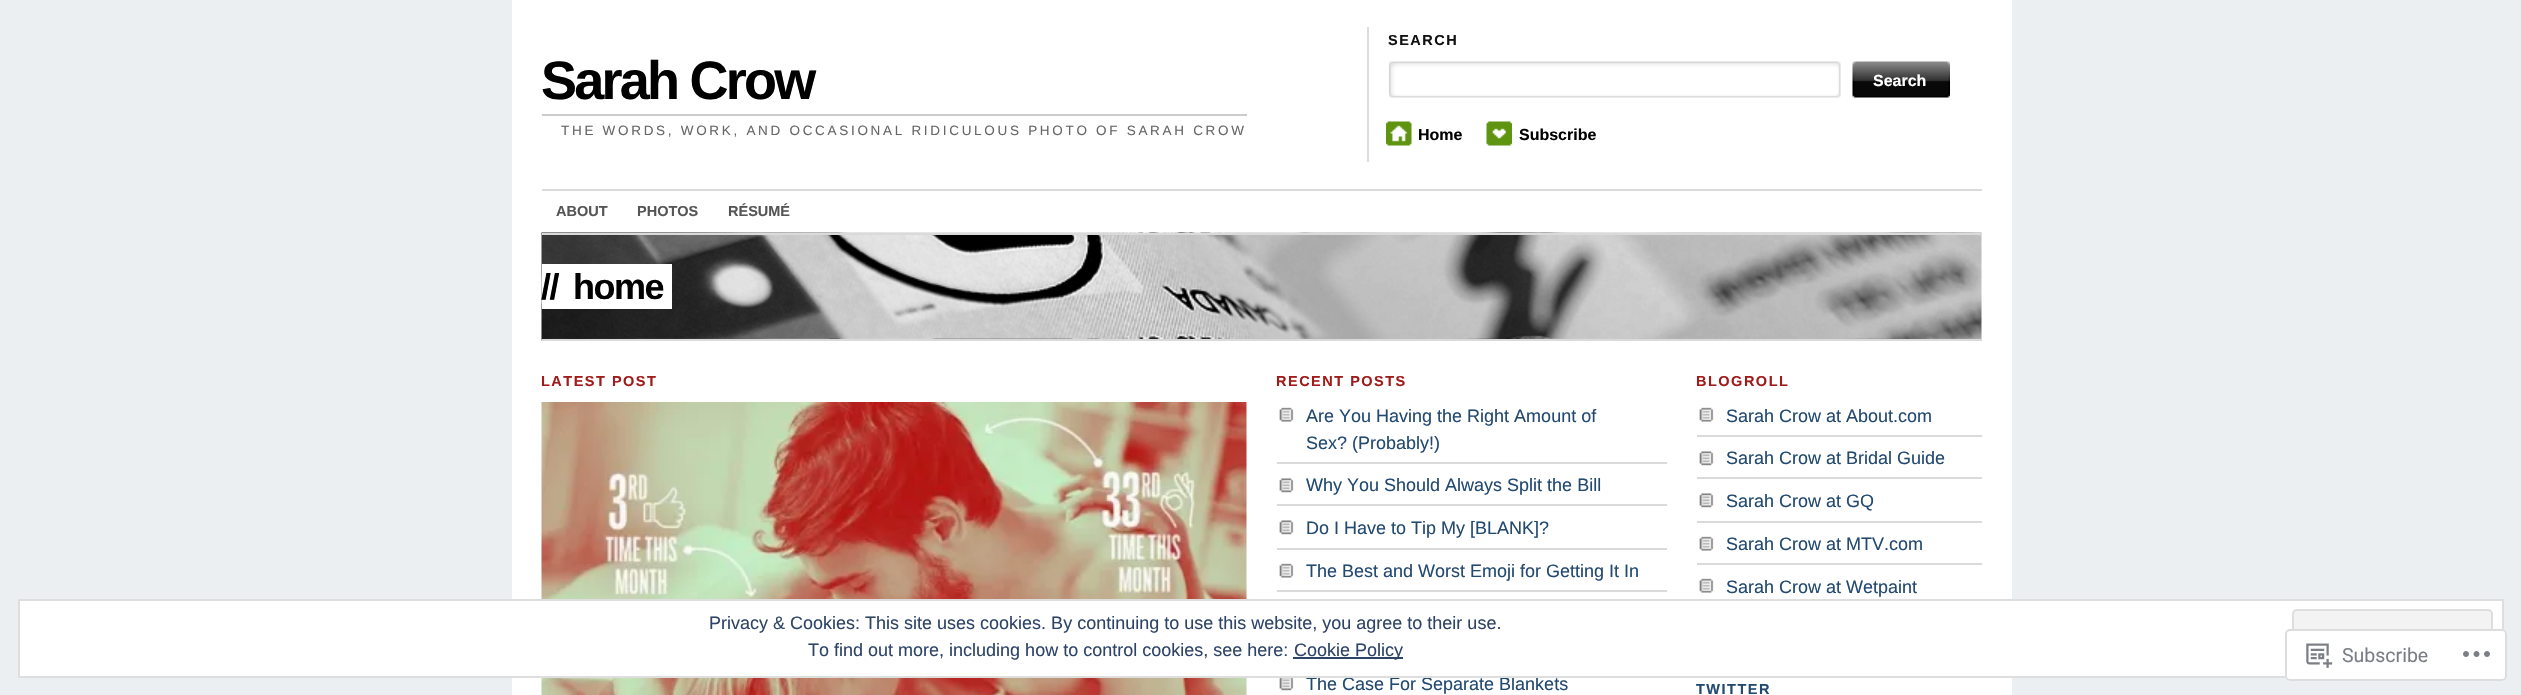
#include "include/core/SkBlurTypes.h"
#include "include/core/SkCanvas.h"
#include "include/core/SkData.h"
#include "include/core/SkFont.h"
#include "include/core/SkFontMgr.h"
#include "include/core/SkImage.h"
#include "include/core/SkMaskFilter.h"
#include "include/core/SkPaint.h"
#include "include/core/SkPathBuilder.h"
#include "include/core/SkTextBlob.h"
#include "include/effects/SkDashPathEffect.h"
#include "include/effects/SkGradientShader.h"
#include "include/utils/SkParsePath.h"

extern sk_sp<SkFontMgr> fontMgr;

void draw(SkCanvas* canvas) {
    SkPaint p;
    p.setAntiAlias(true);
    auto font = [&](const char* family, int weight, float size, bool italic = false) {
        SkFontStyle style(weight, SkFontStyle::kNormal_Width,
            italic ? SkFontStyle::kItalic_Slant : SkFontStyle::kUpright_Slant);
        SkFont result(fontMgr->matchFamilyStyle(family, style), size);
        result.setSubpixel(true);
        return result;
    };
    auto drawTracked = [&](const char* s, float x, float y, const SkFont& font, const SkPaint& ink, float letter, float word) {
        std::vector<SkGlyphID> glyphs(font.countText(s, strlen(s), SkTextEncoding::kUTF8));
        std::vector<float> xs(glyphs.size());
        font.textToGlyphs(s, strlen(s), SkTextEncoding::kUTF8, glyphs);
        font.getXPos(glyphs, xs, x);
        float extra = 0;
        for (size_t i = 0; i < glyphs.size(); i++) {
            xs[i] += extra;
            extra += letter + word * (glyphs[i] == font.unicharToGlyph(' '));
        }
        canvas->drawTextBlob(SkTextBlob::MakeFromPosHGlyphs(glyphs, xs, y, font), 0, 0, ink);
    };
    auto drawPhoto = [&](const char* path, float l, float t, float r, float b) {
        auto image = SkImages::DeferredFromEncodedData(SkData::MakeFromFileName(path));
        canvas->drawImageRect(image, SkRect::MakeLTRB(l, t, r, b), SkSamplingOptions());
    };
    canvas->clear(0xFFEBEFF2);
    p.setColor(0xFFFFFFFF);
    canvas->drawRect(SkRect::MakeLTRB(512, 0, 2012, 695), p);
    auto font1 = font("Liberation Sans", 700, 54);
    p.setColor(0xFF000000);
    drawTracked("Sarah Crow", 541, 99, font1, p, -2.75f, 0);
    p.setColor(0xFFCCCCCC);
    canvas->drawRect(SkRect::MakeLTRB(542, 114, 1247, 116), p);
    auto font2 = font("Liberation Sans", 400, 13.5f);
    p.setColor(0xFF666666);
    drawTracked("THE WORDS, WORK, AND OCCASIONAL RIDICULOUS PHOTO OF SARAH CROW", 561, 135, font2, p, 2.7f, 0);
    p.setColor(0xFFDDDDDD);
    canvas->drawRect(SkRect::MakeLTRB(1367, 27, 1369, 162), p);
    auto font3 = font("Liberation Sans", 700, 14.5f);
    p.setColor(0xFF111111);
    drawTracked("SEARCH", 1388, 45, font3, p, 1.5f, 0);
    drawPhoto("media/1.png", 1389, 61, 1841, 98);
    drawPhoto("media/2.png", 1852, 61, 1950, 98);
    auto font4 = font("Liberation Sans", 700, 16);
    p.setColor(0xFFFFFFFF);
    canvas->drawString("Search", 1873, 86, font4, p);
    drawPhoto("media/3.png", 1386, 121, 1412, 146);
    p.setColor(0xFF000000);
    canvas->drawString("Home", 1418, 140, font4, p);
    drawPhoto("media/4.png", 1486, 121, 1512, 146);
    canvas->drawString("Subscribe", 1519, 140, font4, p);
    p.setColor(0xFFDADADA);
    canvas->drawRect(SkRect::MakeLTRB(542, 189, 1982, 191), p);
    p.setColor(0xFF555555);
    {
        const struct { const char* s; float x, y; } items[] = {
            {"ABOUT", 556, 216},
            {"PHOTOS", 637, 216},
            {"RÉSUMÉ", 728, 216},
        };
        for (auto [s, x, y] : items) {
            canvas->drawString(s, x, y, font3, p);
        }
    }
    drawPhoto("media/5.png", 541, 232, 1982, 341);
    {
        const struct { float l, t, r, b; SkColor color; } items[] = {
            {542, 233, 1982, 235, 0xFFDADADA},
            {542, 339, 1982, 341, 0xFFDADADA},
            {542, 264, 672, 309, 0xFFFFFFFF},
        };
        for (auto [l, t, r, b, color] : items) {
            p.setColor(color);
            canvas->drawRect(SkRect::MakeLTRB(l, t, r, b), p);
        }
    }
    auto font5 = font("Liberation Sans", 700, 36);
    p.setColor(0xFF000000);
    drawTracked("//", 541, 299, font5, p, -1.5f, 0);
    drawTracked("home", 573, 299, font5, p, -1.5f, 0);
    p.setColor(0xFFA11B1B);
    drawTracked("LATEST POST", 541, 386, font3, p, 1.5f, 0);
    drawPhoto("media/6.png", 541, 402, 1247, 695);
    drawTracked("RECENT POSTS", 1276, 386, font3, p, 1.5f, 0);
    drawPhoto("media/7.png", 1279, 407, 1294, 422);
    p.setColor(0xFFDADADA);
    canvas->drawRect(SkRect::MakeLTRB(1277, 462, 1667, 464), p);
    auto font6 = font("Liberation Sans", 400, 18);
    p.setColor(0xFF224970);
    canvas->drawString("Are You Having the Right Amount of", 1306, 422, font6, p);
    canvas->drawString("Sex? (Probably!)", 1306, 449, font6, p);
    drawPhoto("media/8.png", 1279, 478, 1294, 493);
    p.setColor(0xFFDADADA);
    canvas->drawRect(SkRect::MakeLTRB(1277, 504, 1667, 506), p);
    p.setColor(0xFF224970);
    canvas->drawString("Why You Should Always Split the Bill", 1306, 491, font6, p);
    drawPhoto("media/8.png", 1279, 520, 1294, 535);
    p.setColor(0xFFDADADA);
    canvas->drawRect(SkRect::MakeLTRB(1277, 548, 1667, 550), p);
    p.setColor(0xFF224970);
    canvas->drawString("Do I Have to Tip My [BLANK]?", 1306, 534, font6, p);
    drawPhoto("media/7.png", 1279, 563, 1294, 578);
    p.setColor(0xFFDADADA);
    canvas->drawRect(SkRect::MakeLTRB(1277, 590, 1667, 592), p);
    p.setColor(0xFF224970);
    canvas->drawString("The Best and Worst Emoji for Getting It In", 1306, 577, font6, p);
    drawPhoto("media/9.png", 1279, 678, 1294, 691);
    canvas->drawString("The Case For Separate Blankets", 1306, 690, font6, p);
    p.setColor(0xFFA11B1B);
    drawTracked("BLOGROLL", 1696, 386, font3, p, 1.5f, 0);
    drawPhoto("media/7.png", 1699, 407, 1714, 422);
    p.setColor(0xFFDADADA);
    canvas->drawRect(SkRect::MakeLTRB(1697, 435, 1982, 437), p);
    p.setColor(0xFF224970);
    canvas->drawString("Sarah Crow at About.com", 1726, 422, font6, p);
    drawPhoto("media/8.png", 1699, 451, 1714, 466);
    p.setColor(0xFFDADADA);
    canvas->drawRect(SkRect::MakeLTRB(1697, 477, 1982, 479), p);
    p.setColor(0xFF224970);
    canvas->drawString("Sarah Crow at Bridal Guide", 1726, 464, font6, p);
    drawPhoto("media/8.png", 1699, 493, 1714, 508);
    p.setColor(0xFFDADADA);
    canvas->drawRect(SkRect::MakeLTRB(1697, 521, 1982, 523), p);
    p.setColor(0xFF224970);
    canvas->drawString("Sarah Crow at GQ", 1726, 507, font6, p);
    drawPhoto("media/7.png", 1699, 536, 1714, 551);
    p.setColor(0xFFDADADA);
    canvas->drawRect(SkRect::MakeLTRB(1697, 563, 1982, 565), p);
    p.setColor(0xFF224970);
    canvas->drawString("Sarah Crow at MTV.com", 1726, 550, font6, p);
    drawPhoto("media/7.png", 1699, 578, 1714, 593);
    canvas->drawString("Sarah Crow at Wetpaint", 1726, 593, font6, p);
    drawTracked("TWITTER", 1696, 694, font3, p, 1.5f, 0);
    p.setColor(0xFFFFFFFF);
    canvas->drawRect(SkRect::MakeLTRB(19, 600, 2503, 677), p);
    p.setStyle(SkPaint::kStroke_Style);
    p.setStrokeWidth(2);
    p.setColor(0xFFDEDEDE);
    canvas->drawRect(SkRect::MakeLTRB(19, 600, 2503, 677), p);
    p.setStyle(SkPaint::kFill_Style);
    p.setColor(0xFF2E4467);
    canvas->drawString("Privacy & Cookies: This site uses cookies. By continuing to use this website, you agree to their use.", 709, 629, font6, p);
    p.setColor(0xFFF3F3F3);
    canvas->drawRoundRect(SkRect::MakeLTRB(2293, 610, 2492, 667), 4, 4, p);
    p.setStyle(SkPaint::kStroke_Style);
    p.setColor(0xFFDEDEDE);
    canvas->drawRoundRect(SkRect::MakeLTRB(2293, 610, 2492, 667), 4, 4, p);
    p.setStyle(SkPaint::kFill_Style);
    p.setColor(0xFF2E4467);
    canvas->drawString("To find out more, including how to control cookies, see here:", 808, 656, font6, p);
    canvas->drawRect(SkRect::MakeLTRB(1293, 657, 1403, 659), p);
    canvas->drawString("Cookie Policy", 1294, 656, font6, p);
    p.setColor(0xFAFFFFFF);
    canvas->drawRoundRect(SkRect::MakeLTRB(2285, 629, 2507, 681), 5, 5, p);
    p.setStyle(SkPaint::kStroke_Style);
    p.setColor(0xFADCDCDE);
    canvas->drawRoundRect(SkRect::MakeLTRB(2286, 630, 2506, 680), 4, 4, p);
    drawPhoto("media/10.png", 2306, 643, 2333, 668);
    auto font7 = font("Roboto", 400, 19.5f);
    p.setStyle(SkPaint::kFill_Style);
    p.setColor(0xFF7A7E84);
    canvas->drawString("Subscribe", 2342, 662, font7, p);
    drawPhoto("media/11.png", 2463, 651, 2490, 657);
}
